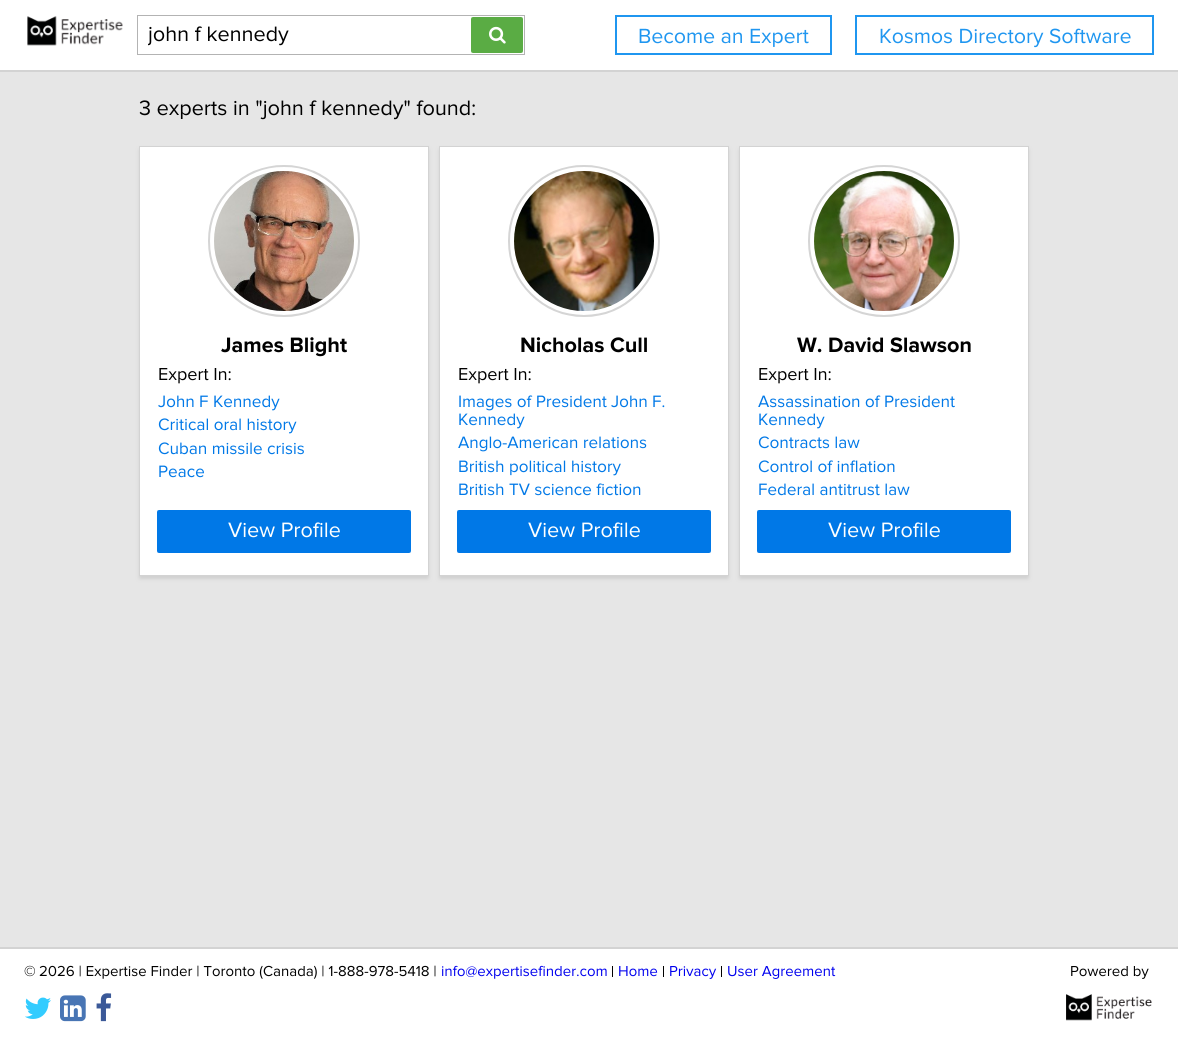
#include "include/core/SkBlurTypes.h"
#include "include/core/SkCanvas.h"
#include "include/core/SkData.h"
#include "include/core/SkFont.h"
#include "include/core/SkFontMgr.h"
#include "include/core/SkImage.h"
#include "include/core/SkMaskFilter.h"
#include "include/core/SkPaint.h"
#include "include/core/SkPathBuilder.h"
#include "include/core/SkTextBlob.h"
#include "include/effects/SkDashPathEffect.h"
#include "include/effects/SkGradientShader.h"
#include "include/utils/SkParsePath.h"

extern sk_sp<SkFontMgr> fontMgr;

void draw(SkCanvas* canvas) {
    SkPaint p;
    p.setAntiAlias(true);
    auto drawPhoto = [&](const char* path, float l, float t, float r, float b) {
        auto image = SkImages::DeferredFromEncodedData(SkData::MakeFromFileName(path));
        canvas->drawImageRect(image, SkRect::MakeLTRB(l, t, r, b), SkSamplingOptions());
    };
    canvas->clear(0xFFE6E6E6);
    p.setColor(0xFFFFFFFF);
    canvas->drawRect(SkRect::MakeLTRB(0, 0, 1178, 70), p);
    p.setColor(0xFFD3D3D3);
    canvas->drawRect(SkRect::MakeLTRB(0, 70, 1178, 72), p);
    drawPhoto("media/1.png", 27, 16, 123, 46);
    p.setStyle(SkPaint::kStroke_Style);
    p.setStrokeWidth(1);
    p.setColor(0xFFB3B3B3);
    canvas->drawRect(SkRect::MakeLTRB(137.5f, 15.5f, 524.5f, 54.5f), p);
    drawPhoto("media/2.png", 148, 26, 289, 46);
    p.setStyle(SkPaint::kFill_Style);
    p.setColor(0xFF5AAC44);
    canvas->drawRoundRect(SkRect::MakeLTRB(471, 17, 523, 53), 2, 2, p);
    drawPhoto("media/3.png", 489, 26, 506, 44);
    p.setStyle(SkPaint::kStroke_Style);
    p.setStrokeWidth(2);
    p.setColor(0xFF1F96F0);
    canvas->drawRect(SkRect::MakeLTRB(616, 16, 831, 54), p);
    drawPhoto("media/4.png", 639, 28, 809, 47);
    canvas->drawRect(SkRect::MakeLTRB(856, 16, 1153, 54), p);
    drawPhoto("media/5.png", 880, 28, 1131, 48);
    drawPhoto("media/6.png", 139, 100, 475, 120);
    p.setStyle(SkPaint::kFill_Style);
    p.setColor(0x17000000);
    p.setMaskFilter(SkMaskFilter::MakeBlur(kNormal_SkBlurStyle, 1.5f));
    canvas->drawRect(SkRect::MakeLTRB(139, 149, 429, 579), p);
    p.setMaskFilter(nullptr);
    p.setColor(0xFFFFFFFF);
    canvas->drawRect(SkRect::MakeLTRB(139.5f, 146.5f, 428.5f, 575.5f), p);
    p.setStyle(SkPaint::kStroke_Style);
    p.setStrokeWidth(1);
    p.setColor(0xFFD3D3D3);
    canvas->drawRect(SkRect::MakeLTRB(139.5f, 146.5f, 428.5f, 575.5f), p);
    p.setStrokeWidth(2);
    p.setColor(0xFFD5D5D5);
    canvas->drawCircle(284, 241, 75, p);
    drawPhoto("media/7.png", 214, 171, 354, 311);
    drawPhoto("media/8.png", 221, 337, 347, 357);
    drawPhoto("media/9.png", 159, 368, 231, 384);
    drawPhoto("media/10.png", 158, 395, 194, 408);
    drawPhoto("media/11.png", 200, 395, 208, 407);
    drawPhoto("media/12.png", 214, 395, 280, 411);
    drawPhoto("media/13.png", 158, 418, 297, 434);
    drawPhoto("media/14.png", 158, 442, 304, 455);
    drawPhoto("media/15.png", 159, 465, 204, 478);
    p.setStyle(SkPaint::kFill_Style);
    p.setColor(0xFF0078E7);
    canvas->drawRoundRect(SkRect::MakeLTRB(157, 510, 411, 553), 2, 2, p);
    drawPhoto("media/16.png", 228, 522, 340, 538);
    p.setColor(0x17000000);
    p.setMaskFilter(SkMaskFilter::MakeBlur(kNormal_SkBlurStyle, 1.5f));
    canvas->drawRect(SkRect::MakeLTRB(439, 149, 729, 579), p);
    p.setMaskFilter(nullptr);
    p.setColor(0xFFFFFFFF);
    canvas->drawRect(SkRect::MakeLTRB(439.5f, 146.5f, 728.5f, 575.5f), p);
    p.setStyle(SkPaint::kStroke_Style);
    p.setStrokeWidth(1);
    p.setColor(0xFFD3D3D3);
    canvas->drawRect(SkRect::MakeLTRB(439.5f, 146.5f, 728.5f, 575.5f), p);
    p.setStrokeWidth(2);
    p.setColor(0xFFD5D5D5);
    canvas->drawCircle(584, 241, 75, p);
    drawPhoto("media/17.png", 514, 171, 654, 311);
    drawPhoto("media/18.png", 521, 337, 647, 353);
    drawPhoto("media/9.png", 459, 368, 531, 384);
    drawPhoto("media/19.png", 459, 395, 607, 411);
    drawPhoto("media/10.png", 611, 395, 647, 408);
    drawPhoto("media/20.png", 653, 395, 665, 408);
    drawPhoto("media/12.png", 459, 413, 525, 429);
    drawPhoto("media/21.png", 458, 436, 647, 452);
    drawPhoto("media/22.png", 459, 460, 621, 476);
    drawPhoto("media/23.png", 459, 483, 641, 496);
    p.setStyle(SkPaint::kFill_Style);
    p.setColor(0xFF0078E7);
    canvas->drawRoundRect(SkRect::MakeLTRB(457, 510, 711, 553), 2, 2, p);
    drawPhoto("media/16.png", 528, 522, 640, 538);
    p.setColor(0x17000000);
    p.setMaskFilter(SkMaskFilter::MakeBlur(kNormal_SkBlurStyle, 1.5f));
    canvas->drawRect(SkRect::MakeLTRB(739, 149, 1029, 579), p);
    p.setMaskFilter(nullptr);
    p.setColor(0xFFFFFFFF);
    canvas->drawRect(SkRect::MakeLTRB(739.5f, 146.5f, 1028.5f, 575.5f), p);
    p.setStyle(SkPaint::kStroke_Style);
    p.setStrokeWidth(1);
    p.setColor(0xFFD3D3D3);
    canvas->drawRect(SkRect::MakeLTRB(739.5f, 146.5f, 1028.5f, 575.5f), p);
    p.setStrokeWidth(2);
    p.setColor(0xFFD5D5D5);
    canvas->drawCircle(884, 241, 75, p);
    drawPhoto("media/24.png", 814, 171, 954, 311);
    drawPhoto("media/25.png", 797, 337, 971, 353);
    drawPhoto("media/9.png", 759, 368, 831, 384);
    drawPhoto("media/26.png", 758, 395, 881, 408);
    drawPhoto("media/27.png", 885, 395, 955, 408);
    drawPhoto("media/12.png", 759, 413, 825, 429);
    drawPhoto("media/28.png", 758, 436, 860, 449);
    drawPhoto("media/29.png", 758, 460, 895, 473);
    drawPhoto("media/30.png", 759, 483, 910, 496);
    p.setStyle(SkPaint::kFill_Style);
    p.setColor(0xFF0078E7);
    canvas->drawRoundRect(SkRect::MakeLTRB(757, 510, 1011, 553), 2, 2, p);
    drawPhoto("media/16.png", 828, 522, 940, 538);
    p.setColor(0xFFFFFFFF);
    canvas->drawRect(SkRect::MakeLTRB(0, 949, 1178, 1044), p);
    p.setColor(0xFFD3D3D3);
    canvas->drawRect(SkRect::MakeLTRB(0, 947, 1178, 949), p);
    drawPhoto("media/31.png", 24, 965, 35, 977);
    drawPhoto("media/32.png", 39, 965, 436, 979);
    drawPhoto("media/33.png", 442, 965, 607, 979);
    p.setColor(0xFF000000);
    canvas->drawRect(SkRect::MakeLTRB(612, 966, 613, 977), p);
    drawPhoto("media/34.png", 619, 966, 658, 977);
    canvas->drawRect(SkRect::MakeLTRB(663, 966, 664, 977), p);
    drawPhoto("media/35.png", 670, 966, 717, 979);
    canvas->drawRect(SkRect::MakeLTRB(721, 966, 722, 977), p);
    drawPhoto("media/36.png", 728, 966, 836, 979);
    drawPhoto("media/37.png", 25, 997, 51, 1019);
    drawPhoto("media/38.png", 60, 995, 86, 1022);
    drawPhoto("media/39.png", 96, 993, 112, 1022);
    drawPhoto("media/40.png", 1071, 966, 1149, 979);
    drawPhoto("media/41.png", 1066, 994, 1152, 1021);
}
